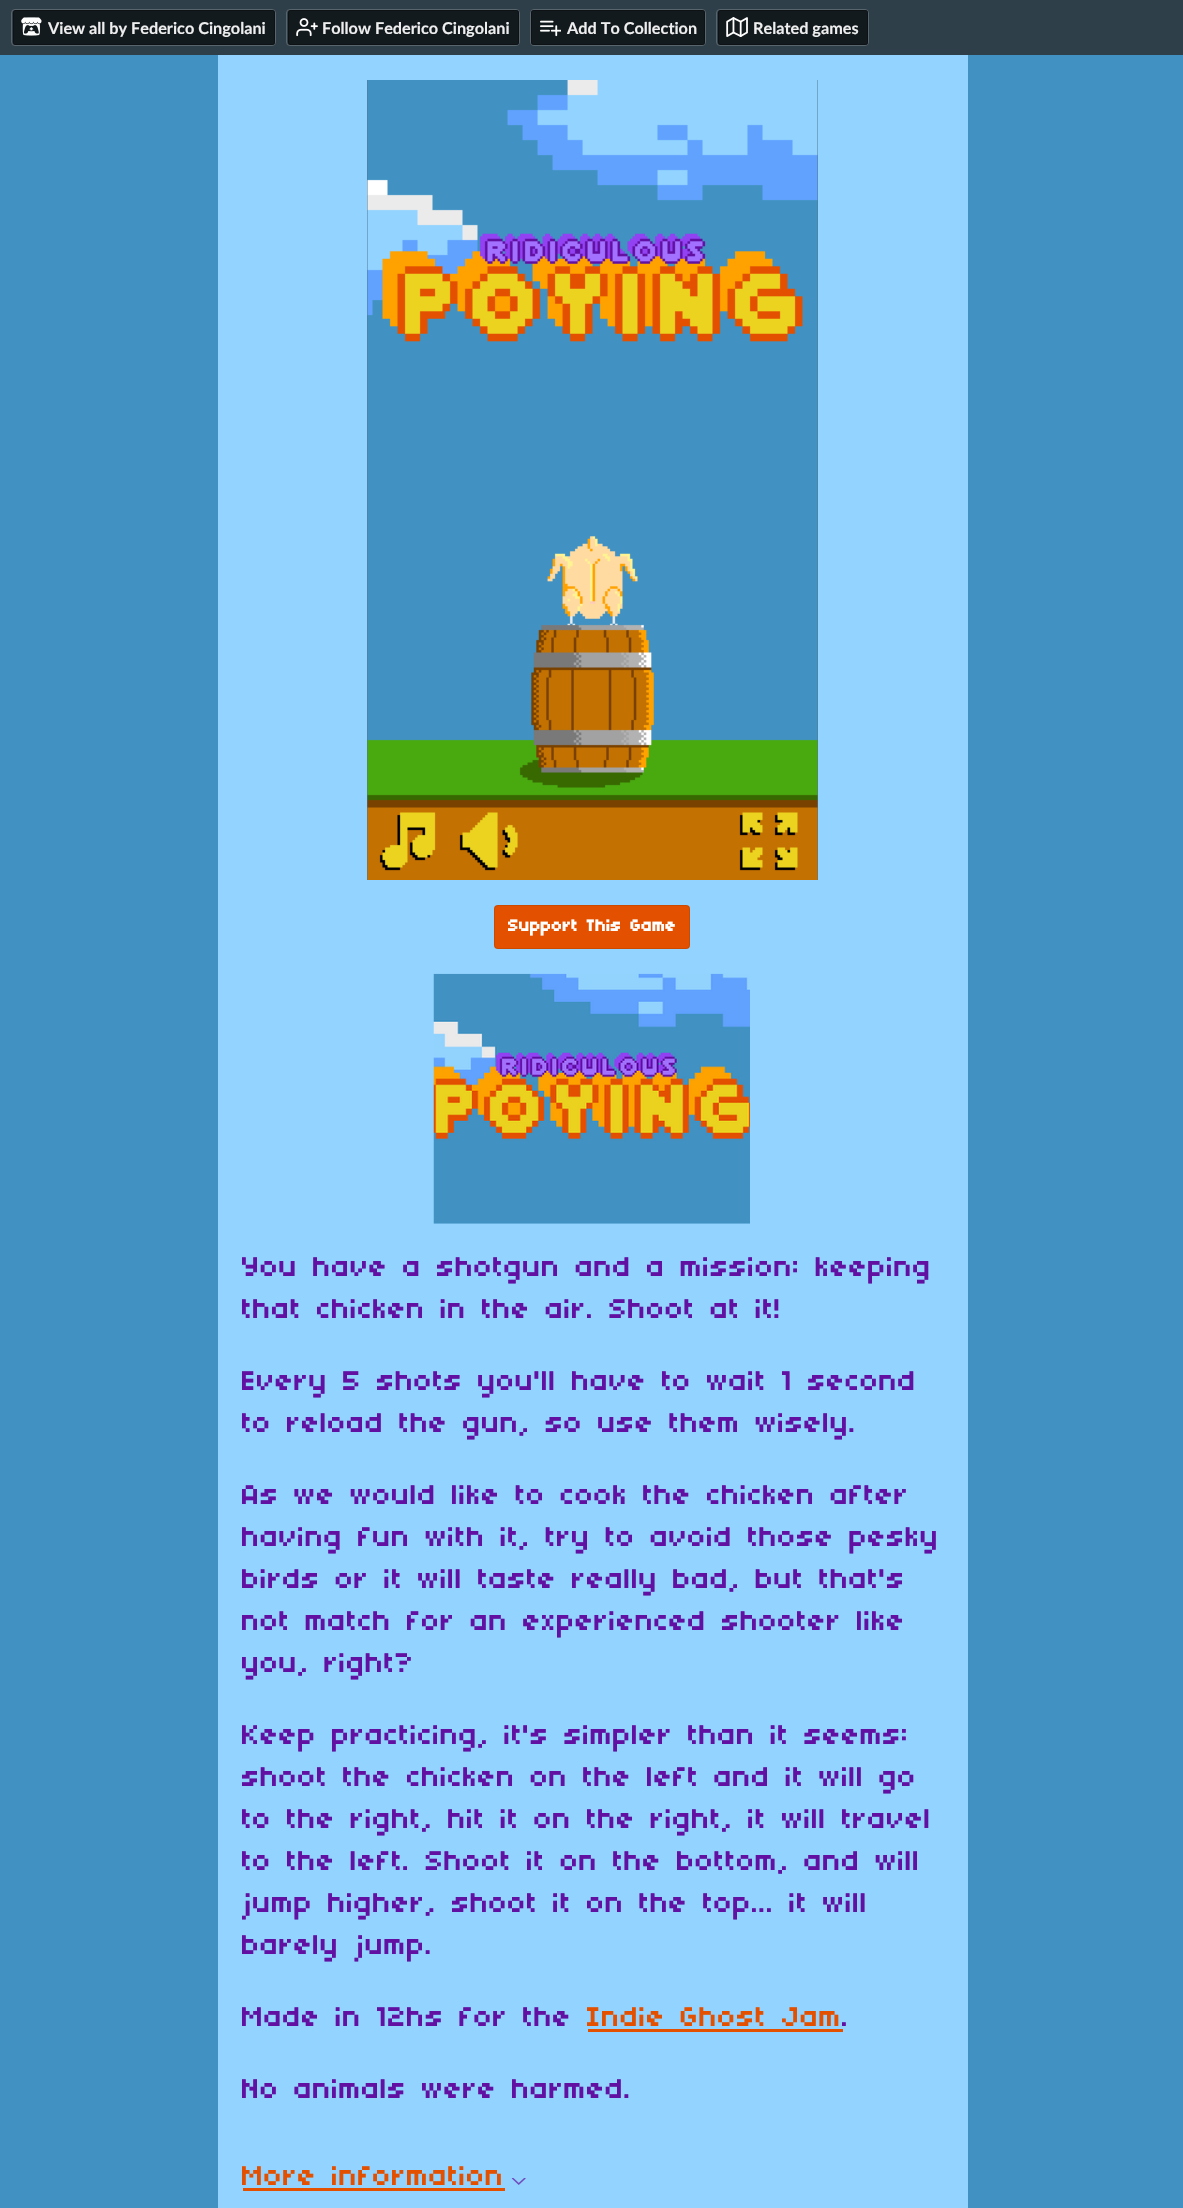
#include "include/core/SkBlurTypes.h"
#include "include/core/SkCanvas.h"
#include "include/core/SkData.h"
#include "include/core/SkFont.h"
#include "include/core/SkFontMgr.h"
#include "include/core/SkImage.h"
#include "include/core/SkMaskFilter.h"
#include "include/core/SkPaint.h"
#include "include/core/SkPathBuilder.h"
#include "include/core/SkTextBlob.h"
#include "include/effects/SkDashPathEffect.h"
#include "include/effects/SkGradientShader.h"
#include "include/utils/SkParsePath.h"

extern sk_sp<SkFontMgr> fontMgr;

void draw(SkCanvas* canvas) {
    SkPaint p;
    p.setAntiAlias(true);
    auto font = [&](const char* family, int weight, float size, bool italic = false) {
        SkFontStyle style(weight, SkFontStyle::kNormal_Width,
            italic ? SkFontStyle::kItalic_Slant : SkFontStyle::kUpright_Slant);
        SkFont result(fontMgr->matchFamilyStyle(family, style), size);
        result.setSubpixel(true);
        return result;
    };
    auto drawPhoto = [&](const char* path, float l, float t, float r, float b) {
        auto image = SkImages::DeferredFromEncodedData(SkData::MakeFromFileName(path));
        canvas->drawImageRect(image, SkRect::MakeLTRB(l, t, r, b), SkSamplingOptions());
    };
    canvas->clear(0xFF4192C3);
    p.setColor(0xFF2F3F49);
    canvas->drawRect(SkRect::MakeLTRB(0, 0, 1183, 55), p);
    p.setStyle(SkPaint::kStroke_Style);
    p.setStrokeWidth(1);
    p.setColor(0xFF59656D);
    canvas->drawRoundRect(SkRect::MakeLTRB(11.5f, 9.5f, 275.5f, 45.5f), 3.5f, 3.5f, p);
    p.setStyle(SkPaint::kFill_Style);
    p.setColor(0x99000000);
    canvas->drawRoundRect(SkRect::MakeLTRB(13, 10, 275, 45), 2.5f, 2.5f, p);
    p.setStyle(SkPaint::kStroke_Style);
    p.setColor(0x800A0A0A);
    canvas->drawRoundRect(SkRect::MakeLTRB(13.5f, 10.5f, 274.5f, 44.5f), 2, 2, p);
    drawPhoto("media/1.png", 21, 17, 42, 36);
    auto font1 = font("Lato", 700, 16.25f);
    p.setStyle(SkPaint::kFill_Style);
    p.setColor(0xFFEEEEEE);
    canvas->drawString("View all by Federico Cingolani", 48, 34, font1, p);
    p.setStyle(SkPaint::kStroke_Style);
    p.setColor(0xFF59656D);
    canvas->drawRoundRect(SkRect::MakeLTRB(286.5f, 9.5f, 519.5f, 45.5f), 3.5f, 3.5f, p);
    p.setStyle(SkPaint::kFill_Style);
    p.setColor(0x99000000);
    canvas->drawRoundRect(SkRect::MakeLTRB(288, 10, 519, 45), 2.5f, 2.5f, p);
    p.setStyle(SkPaint::kStroke_Style);
    p.setColor(0x800A0A0A);
    canvas->drawRoundRect(SkRect::MakeLTRB(288.5f, 10.5f, 518.5f, 44.5f), 2, 2, p);
    drawPhoto("media/2.png", 296, 18, 318, 37);
    p.setStyle(SkPaint::kFill_Style);
    p.setColor(0xFFEEEEEE);
    canvas->drawString("Follow Federico Cingolani", 322, 34, font1, p);
    p.setStyle(SkPaint::kStroke_Style);
    p.setColor(0xFF59656D);
    canvas->drawRoundRect(SkRect::MakeLTRB(530.5f, 9.5f, 705.5f, 45.5f), 3.5f, 3.5f, p);
    p.setStyle(SkPaint::kFill_Style);
    p.setColor(0x99000000);
    canvas->drawRoundRect(SkRect::MakeLTRB(531, 10, 705, 45), 2.5f, 2.5f, p);
    p.setStyle(SkPaint::kStroke_Style);
    p.setColor(0x800A0A0A);
    canvas->drawRoundRect(SkRect::MakeLTRB(531.5f, 10.5f, 704.5f, 44.5f), 2, 2, p);
    drawPhoto("media/3.png", 540, 20, 561, 37);
    p.setStyle(SkPaint::kFill_Style);
    p.setColor(0xFFEEEEEE);
    canvas->drawString("Add To Collection", 567, 34, font1, p);
    p.setStyle(SkPaint::kStroke_Style);
    p.setColor(0xFF59656D);
    canvas->drawRoundRect(SkRect::MakeLTRB(716.5f, 9.5f, 868.5f, 45.5f), 3.5f, 3.5f, p);
    p.setStyle(SkPaint::kFill_Style);
    p.setColor(0x99000000);
    canvas->drawRoundRect(SkRect::MakeLTRB(718, 10, 868, 45), 2.5f, 2.5f, p);
    p.setStyle(SkPaint::kStroke_Style);
    p.setColor(0x800A0A0A);
    canvas->drawRoundRect(SkRect::MakeLTRB(718.5f, 10.5f, 867.5f, 44.5f), 2, 2, p);
    drawPhoto("media/4.png", 726, 17, 748, 37);
    p.setStyle(SkPaint::kFill_Style);
    p.setColor(0xFFEEEEEE);
    canvas->drawString("Related games", 753, 34, font1, p);
    p.setColor(0xFF92D3FF);
    canvas->drawRect(SkRect::MakeLTRB(218, 55, 968, 2208), p);
    drawPhoto("media/5.png", 367, 80, 818, 880);
    p.setColor(0xFFE35100);
    canvas->drawRoundRect(SkRect::MakeLTRB(494, 905, 690, 949), 4, 4, p);
    p.setStyle(SkPaint::kStroke_Style);
    p.setColor(0x1A000000);
    canvas->drawRoundRect(SkRect::MakeLTRB(494.5f, 905.5f, 689.5f, 948.5f), 3.5f, 3.5f, p);
    auto font2 = font("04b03", 700, 17.5f);
    p.setStyle(SkPaint::kFill_Style);
    p.setColor(0xFFFFFFFF);
    canvas->drawString("Support This Game", 508, 931, font2, p);
    drawPhoto("media/6.png", 433, 973, 750, 1224);
    auto font3 = font("04b03", 400, 30);
    p.setColor(0xFF6110A2);
    {
        const struct { const char* s; float x, y; } items[] = {
            {"You have a shotgun and a mission: keeping", 242, 1276},
            {"that chicken in the air. Shoot at it!", 242, 1318},
            {"Every 5 shots you'll have to wait 1 second", 242, 1390},
            {"to reload the gun, so use them wisely.", 242, 1432},
            {"As we would like to cook the chicken after", 242, 1504},
            {"having fun with it, try to avoid those pesky", 242, 1546},
            {"birds or it will taste really bad, but that's", 242, 1588},
            {"not match for an experienced shooter like", 242, 1630},
            {"you, right?", 242, 1672},
            {"Keep practicing, it's simpler than it seems:", 242, 1744},
            {"shoot the chicken on the left and it will go", 242, 1786},
            {"to the right, hit it on the right, it will travel", 242, 1828},
            {"to the left. Shoot it on the bottom, and will", 242, 1870},
            {"jump higher, shoot it on the top... it will", 242, 1912},
            {"barely jump.", 242, 1954},
            {"Made in 12hs for the", 242, 2026},
        };
        for (auto [s, x, y] : items) {
            canvas->drawString(s, x, y, font3, p);
        }
    }
    p.setColor(0xFFE35100);
    canvas->drawString("Indie Ghost Jam", 587, 2026, font3, p);
    canvas->drawRect(SkRect::MakeLTRB(588, 2029, 843, 2032), p);
    p.setColor(0xFF6110A2);
    canvas->drawString(".", 842, 2026, font3, p);
    canvas->drawString("No animals were harmed.", 242, 2098, font3, p);
    p.setColor(0xFFE35100);
    canvas->drawString("More information", 242, 2185, font3, p);
    canvas->drawRect(SkRect::MakeLTRB(243, 2188, 505, 2191), p);
    drawPhoto("media/7.png", 511, 2178, 526, 2185);
}
